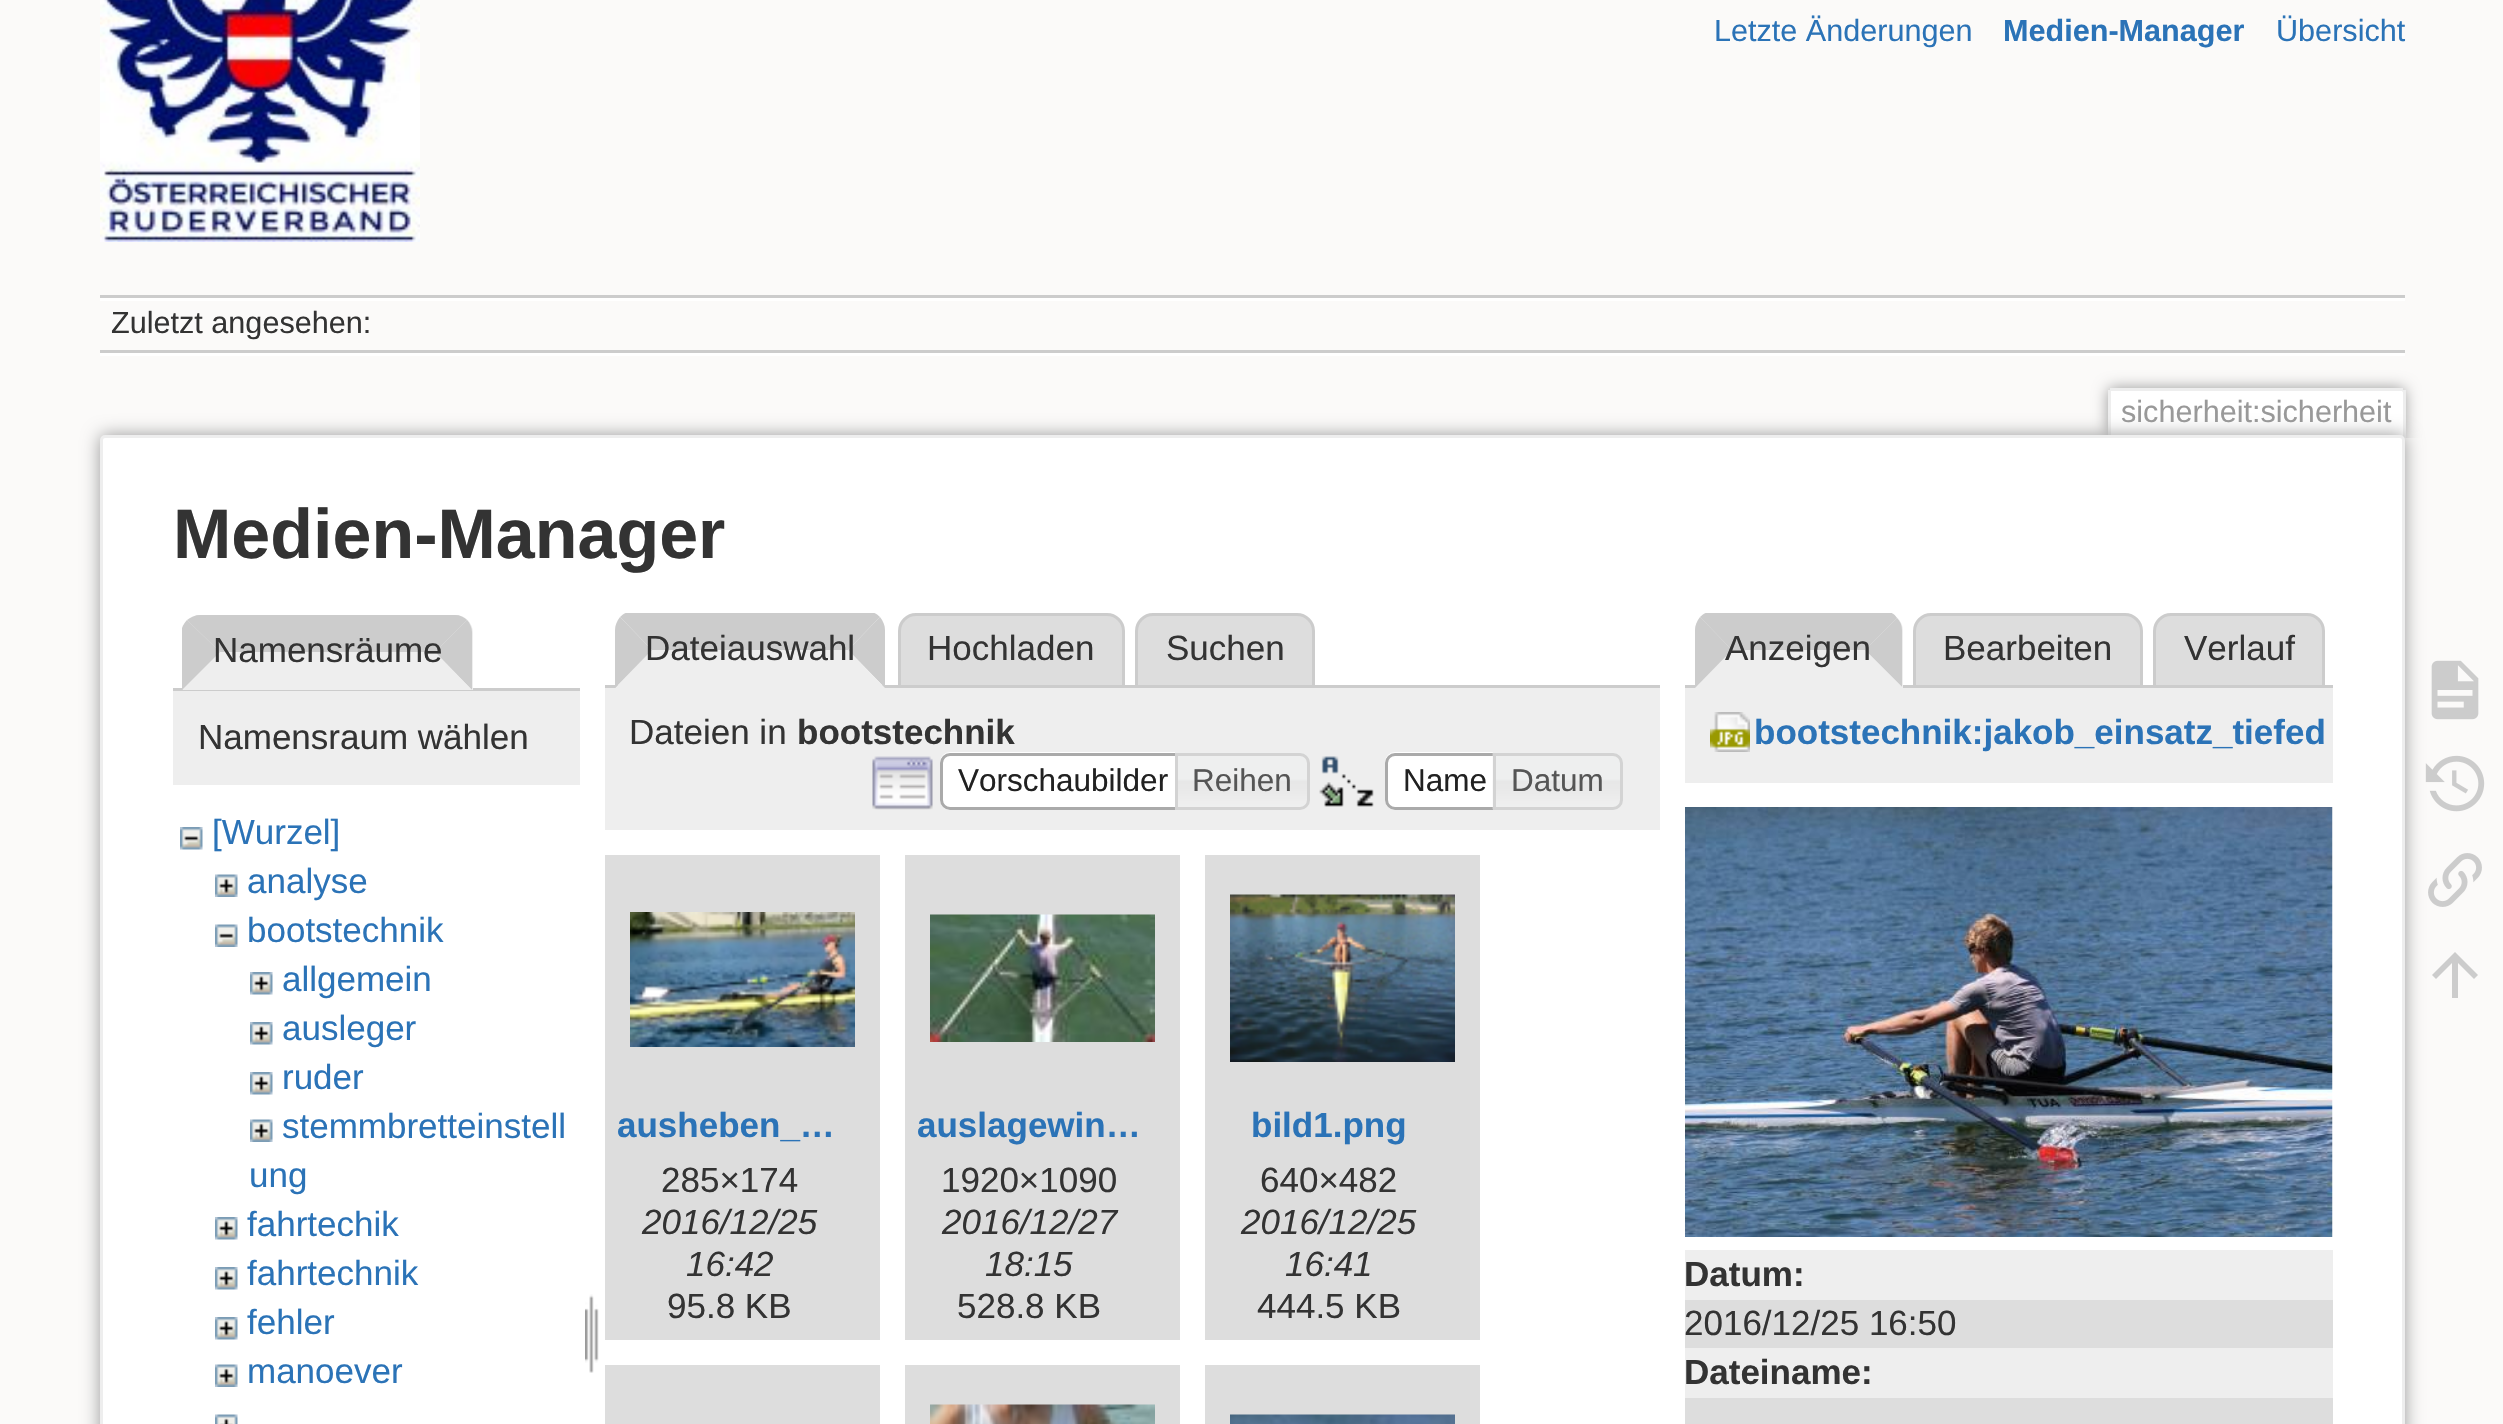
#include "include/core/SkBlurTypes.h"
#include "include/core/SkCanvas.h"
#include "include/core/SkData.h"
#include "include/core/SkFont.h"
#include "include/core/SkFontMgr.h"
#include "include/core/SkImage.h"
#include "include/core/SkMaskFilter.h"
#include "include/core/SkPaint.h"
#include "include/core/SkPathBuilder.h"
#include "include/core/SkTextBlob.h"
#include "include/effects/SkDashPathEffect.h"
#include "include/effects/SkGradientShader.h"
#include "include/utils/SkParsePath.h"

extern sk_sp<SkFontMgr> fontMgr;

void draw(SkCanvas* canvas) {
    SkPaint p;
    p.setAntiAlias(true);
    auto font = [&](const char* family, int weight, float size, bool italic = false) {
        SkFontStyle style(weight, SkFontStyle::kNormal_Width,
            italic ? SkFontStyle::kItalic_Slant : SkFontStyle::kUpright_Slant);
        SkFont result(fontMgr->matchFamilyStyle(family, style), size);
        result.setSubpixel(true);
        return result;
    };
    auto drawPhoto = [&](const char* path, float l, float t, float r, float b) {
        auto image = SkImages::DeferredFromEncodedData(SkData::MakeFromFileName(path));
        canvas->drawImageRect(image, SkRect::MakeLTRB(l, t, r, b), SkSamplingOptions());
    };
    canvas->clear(0xFFFBFAF9);
    drawPhoto("media/1.png", 100, 0, 420, 242);
    auto font1 = font("Liberation Sans", 400, 30.6f);
    p.setColor(0xFF2B73B7);
    canvas->drawString("Letzte Änderungen", 1714, 41, font1, p);
    auto font2 = font("Liberation Sans", 700, 30.6f);
    canvas->drawString("Medien-Manager", 2003, 41, font2, p);
    canvas->drawString("Übersicht", 2276, 41, font1, p);
    {
        const struct { float l, t, r, b; SkColor color; } items[] = {
            {100, 295, 2405, 298, 0xFFCCCCCC},
            {100, 353, 2405, 356, 0xFFFFFFFF},
            {100, 298, 2405, 301, 0xFFFFFFFF},
            {100, 350, 2405, 353, 0xFFCCCCCC},
        };
        for (auto [l, t, r, b, color] : items) {
            p.setColor(color);
            canvas->drawRect(SkRect::MakeLTRB(l, t, r, b), p);
        }
    }
    p.setColor(0xFF333333);
    canvas->drawString("Zuletzt angesehen:", 111, 333, font1, p);
    canvas->save();
    canvas->clipRect(SkRect::MakeLTRB(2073, 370, 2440, 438));
    p.setColor(0xFF999999);
    p.setMaskFilter(SkMaskFilter::MakeBlur(kNormal_SkBlurStyle, 7.5f));
    canvas->drawRoundRect(SkRect::MakeLTRB(2108, 388, 2405, 438), 5, 5, p);
    p.setMaskFilter(nullptr);
    canvas->restore();
    p.setColor(0xFFFFFFFF);
    canvas->drawPath(SkPathBuilder().moveTo(2112.5f, 390).lineTo(2400.5f, 390).cubicTo(2402, 390, 2403, 391, 2403, 392.5f).lineTo(2403, 438).lineTo(2110, 438).lineTo(2110, 392.5f).cubicTo(2110, 391, 2111, 390, 2112.5f, 390).close().detach(), p);
    {
        const struct { float l, t, r, b; SkColor color; } items[] = {
            {2110, 388, 2403, 391, 0xFFEEEEEE},
            {2403, 390, 2406, 438, 0xFFEEEEEE},
            {2108, 390, 2111, 438, 0xFFEEEEEE},
        };
        for (auto [l, t, r, b, color] : items) {
            p.setColor(color);
            canvas->drawRect(SkRect::MakeLTRB(l, t, r, b), p);
        }
    }
    p.setColor(0xFF999999);
    canvas->drawString("sicherheit:sicherheit", 2121, 422, font1, p);
    p.setMaskFilter(SkMaskFilter::MakeBlur(kNormal_SkBlurStyle, 9));
    canvas->drawRoundRect(SkRect::MakeLTRB(100, 435, 2405, 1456), 5, 5, p);
    p.setMaskFilter(nullptr);
    p.setColor(0xFFFFFFFF);
    canvas->drawRoundRect(SkRect::MakeLTRB(101.5f, 436.5f, 2403.5f, 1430.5f), 3.5f, 3.5f, p);
    p.setStyle(SkPaint::kStroke_Style);
    p.setStrokeWidth(3);
    p.setColor(0xFFEEEEEE);
    canvas->drawRoundRect(SkRect::MakeLTRB(101.5f, 436.5f, 2403.5f, 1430.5f), 3.5f, 3.5f, p);
    auto font3 = font("Liberation Sans", 700, 70);
    p.setStyle(SkPaint::kFill_Style);
    p.setColor(0xFF333333);
    canvas->drawString("Medien-Manager", 173, 558, font3, p);
    p.setColor(0xFFCCCCCC);
    canvas->drawRect(SkRect::MakeLTRB(173, 688, 580, 691), p);
    p.setColor(0xFFEEEEEE);
    canvas->drawPath(SkPathBuilder().moveTo(201, 615).lineTo(455, 615).cubicTo(465, 615, 473, 623, 473, 633).lineTo(473, 690).lineTo(183, 690).lineTo(183, 633).cubicTo(183, 623, 191, 615, 201, 615).close().detach(), p);
    p.setColor(0xFFCCCCCC);
    canvas->drawPath(SkPathBuilder().moveTo(200, 615).lineTo(455, 615).cubicTo(460, 615, 464, 617, 467, 620).lineTo(435, 652).lineTo(220, 652).lineTo(187, 620).cubicTo(191, 617, 195, 615, 200, 615).close().detach(), p);
    canvas->drawPath(SkPathBuilder().moveTo(467, 620).lineTo(435, 652).lineTo(472, 690).lineTo(472, 632).cubicTo(472, 628, 470, 623, 467, 620).close().detach(), p);
    p.setColor(0xFFEEEEEE);
    canvas->drawPath(SkPathBuilder().moveTo(472, 690).lineTo(435, 652).lineTo(220, 652).lineTo(182, 690).close().detach(), p);
    p.setColor(0xFFCCCCCC);
    canvas->drawPath(SkPathBuilder().moveTo(182, 690).lineTo(220, 652).lineTo(187, 620).cubicTo(185, 622, 183, 625, 182, 628).close().detach(), p);
    auto font4 = font("Liberation Sans", 400, 35);
    p.setColor(0xFF333333);
    canvas->drawString("Namensräume", 213, 662, font4, p);
    p.setColor(0xFFEEEEEE);
    canvas->drawRect(SkRect::MakeLTRB(173, 691, 580, 785), p);
    p.setColor(0xFF333333);
    canvas->drawString("Namensraum wählen", 198, 749, font4, p);
    drawPhoto("media/2.png", 180, 827, 203, 850);
    p.setColor(0xFF2B73B7);
    canvas->drawString("[Wurzel]", 212, 844, font4, p);
    drawPhoto("media/3.png", 215, 874, 238, 897);
    canvas->drawString("analyse", 247, 893, font4, p);
    drawPhoto("media/4.png", 215, 924, 238, 947);
    canvas->drawString("bootstechnik", 247, 942, font4, p);
    drawPhoto("media/5.png", 250, 972, 273, 995);
    canvas->drawString("allgemein", 282, 991, font4, p);
    drawPhoto("media/6.png", 250, 1022, 273, 1045);
    canvas->drawString("ausleger", 282, 1040, font4, p);
    drawPhoto("media/5.png", 250, 1072, 273, 1095);
    canvas->drawString("ruder", 282, 1089, font4, p);
    drawPhoto("media/7.png", 250, 1119, 273, 1142);
    canvas->drawString("stemmbretteinstell", 282, 1138, font4, p);
    canvas->drawString("ung", 249, 1187, font4, p);
    drawPhoto("media/5.png", 215, 1217, 238, 1240);
    canvas->drawString("fahrtechik", 247, 1236, font4, p);
    drawPhoto("media/5.png", 215, 1267, 238, 1290);
    canvas->drawString("fahrtechnik", 247, 1285, font4, p);
    drawPhoto("media/5.png", 215, 1317, 238, 1340);
    canvas->drawString("fehler", 247, 1334, font4, p);
    drawPhoto("media/7.png", 215, 1364, 238, 1387);
    canvas->drawString("manoever", 247, 1383, font4, p);
    drawPhoto("media/8.png", 215, 1414, 238, 1424);
    drawPhoto("media/9.png", 585, 1294, 599, 1373);
    canvas->save();
    canvas->clipRect(SkRect::MakeLTRB(605, 613, 1660, 688));
    p.setColor(0xFFCCCCCC);
    canvas->drawPath(SkPathBuilder().moveTo(872, 612).lineTo(628, 612).cubicTo(625, 613, 622, 615, 620, 617).lineTo(652, 650).lineTo(848, 650).lineTo(880, 617).cubicTo(878, 615, 875, 613, 872, 612).close().detach(), p);
    canvas->restore();
    p.setColor(0xFFDDDDDD);
    canvas->drawPath(SkPathBuilder().moveTo(916, 614.5f).lineTo(1107, 614.5f).cubicTo(1116, 614.5f, 1123.5f, 622, 1123.5f, 631).lineTo(1123.5f, 686.5f).lineTo(899.5f, 686.5f).lineTo(899.5f, 631).cubicTo(899.5f, 622, 907, 614.5f, 916, 614.5f).close().detach(), p);
    p.setStyle(SkPaint::kStroke_Style);
    p.setColor(0xFFCCCCCC);
    canvas->drawPath(SkPathBuilder().moveTo(916, 614.5f).lineTo(1107, 614.5f).cubicTo(1116, 614.5f, 1123.5f, 622, 1123.5f, 631).lineTo(1123.5f, 686.5f).lineTo(899.5f, 686.5f).lineTo(899.5f, 631).cubicTo(899.5f, 622, 907, 614.5f, 916, 614.5f).close().detach(), p);
    p.setStyle(SkPaint::kFill_Style);
    p.setColor(0xFFDDDDDD);
    canvas->drawPath(SkPathBuilder().moveTo(1153, 614.5f).lineTo(1297, 614.5f).cubicTo(1306, 614.5f, 1313.5f, 622, 1313.5f, 631).lineTo(1313.5f, 686.5f).lineTo(1136.5f, 686.5f).lineTo(1136.5f, 631).cubicTo(1136.5f, 622, 1144, 614.5f, 1153, 614.5f).close().detach(), p);
    p.setStyle(SkPaint::kStroke_Style);
    p.setColor(0xFFCCCCCC);
    canvas->drawPath(SkPathBuilder().moveTo(1153, 614.5f).lineTo(1297, 614.5f).cubicTo(1306, 614.5f, 1313.5f, 622, 1313.5f, 631).lineTo(1313.5f, 686.5f).lineTo(1136.5f, 686.5f).lineTo(1136.5f, 631).cubicTo(1136.5f, 622, 1144, 614.5f, 1153, 614.5f).close().detach(), p);
    p.setStyle(SkPaint::kFill_Style);
    canvas->drawRect(SkRect::MakeLTRB(605, 685, 1660, 688), p);
    canvas->drawPath(SkPathBuilder().moveTo(880, 617).lineTo(848, 650).lineTo(885, 688).lineTo(885, 630).cubicTo(885, 625, 883, 621, 880, 617).close().detach(), p);
    p.setColor(0xFFEEEEEE);
    canvas->drawPath(SkPathBuilder().moveTo(885, 688).lineTo(848, 650).lineTo(652, 650).lineTo(615, 688).close().detach(), p);
    p.setColor(0xFFCCCCCC);
    canvas->drawPath(SkPathBuilder().moveTo(615, 688).lineTo(652, 650).lineTo(620, 617).cubicTo(617, 621, 615, 625, 615, 630).close().detach(), p);
    p.setColor(0xFF333333);
    {
        const struct { const char* s; float x, y; } items[] = {
            {"Dateiauswahl", 645, 660},
            {"Hochladen", 927, 660},
            {"Suchen", 1166, 660},
        };
        for (auto [s, x, y] : items) {
            canvas->drawString(s, x, y, font4, p);
        }
    }
    p.setColor(0xFFEEEEEE);
    canvas->drawRect(SkRect::MakeLTRB(605, 688, 1660, 830), p);
    p.setColor(0xFF333333);
    canvas->drawString("Dateien in", 629, 744, font4, p);
    auto font5 = font("Liberation Sans", 700, 35);
    canvas->drawString("bootstechnik", 797, 744, font5, p);
    drawPhoto("media/10.png", 872, 756, 933, 810);
    p.setColor(0xFFFFFFFF);
    canvas->drawPath(SkPathBuilder().moveTo(950, 753).lineTo(1188, 753).lineTo(1188, 810).lineTo(950, 810).cubicTo(944.5f, 810, 940, 805.5f, 940, 800).lineTo(940, 763).cubicTo(940, 757.5f, 944.5f, 753, 950, 753).close().detach(), p);
    drawPhoto("media/11.png", 940, 752, 1175, 760);
    p.setStyle(SkPaint::kStroke_Style);
    p.setColor(0xFFAAAAAA);
    canvas->drawPath(SkPathBuilder().moveTo(950, 754.5f).lineTo(1186.5f, 754.5f).lineTo(1186.5f, 808.5f).lineTo(950, 808.5f).cubicTo(945.5f, 808.5f, 941.5f, 804.5f, 941.5f, 800).lineTo(941.5f, 763).cubicTo(941.5f, 758.5f, 945.5f, 754.5f, 950, 754.5f).close().detach(), p);
    auto font6 = font("Liberation Sans", 400, 31.5f);
    p.setStyle(SkPaint::kFill_Style);
    p.setColor(0xFF212121);
    canvas->drawString("Vorschaubilder", 958, 791, font6, p);
    drawPhoto("media/12.png", 1175, 752, 1310, 809);
    p.setStyle(SkPaint::kStroke_Style);
    p.setColor(0xFFD3D3D3);
    canvas->drawPath(SkPathBuilder().moveTo(1176.5f, 754.5f).lineTo(1300, 754.5f).cubicTo(1304.5f, 754.5f, 1308.5f, 758.5f, 1308.5f, 763).lineTo(1308.5f, 800).cubicTo(1308.5f, 804.5f, 1304.5f, 808.5f, 1300, 808.5f).lineTo(1176.5f, 808.5f).close().detach(), p);
    p.setStyle(SkPaint::kFill_Style);
    p.setColor(0xFF555555);
    canvas->drawString("Reihen", 1192, 791, font6, p);
    drawPhoto("media/13.png", 1319, 756, 1374, 807);
    p.setColor(0xFFFFFFFF);
    canvas->drawPath(SkPathBuilder().moveTo(1395, 753).lineTo(1505, 753).lineTo(1505, 810).lineTo(1395, 810).cubicTo(1389.5f, 810, 1385, 805.5f, 1385, 800).lineTo(1385, 763).cubicTo(1385, 757.5f, 1389.5f, 753, 1395, 753).close().detach(), p);
    drawPhoto("media/14.png", 1385, 752, 1493, 760);
    p.setStyle(SkPaint::kStroke_Style);
    p.setColor(0xFFAAAAAA);
    canvas->drawPath(SkPathBuilder().moveTo(1395, 754.5f).lineTo(1503.5f, 754.5f).lineTo(1503.5f, 808.5f).lineTo(1395, 808.5f).cubicTo(1390.5f, 808.5f, 1386.5f, 804.5f, 1386.5f, 800).lineTo(1386.5f, 763).cubicTo(1386.5f, 758.5f, 1390.5f, 754.5f, 1395, 754.5f).close().detach(), p);
    p.setStyle(SkPaint::kFill_Style);
    p.setColor(0xFF212121);
    canvas->drawString("Name", 1403, 791, font6, p);
    drawPhoto("media/15.png", 1492, 752, 1622, 810);
    p.setStyle(SkPaint::kStroke_Style);
    p.setColor(0xFFD3D3D3);
    canvas->drawPath(SkPathBuilder().moveTo(1494.5f, 754.5f).lineTo(1613, 754.5f).cubicTo(1617.5f, 754.5f, 1621.5f, 758.5f, 1621.5f, 763).lineTo(1621.5f, 800).cubicTo(1621.5f, 804.5f, 1617.5f, 808.5f, 1613, 808.5f).lineTo(1494.5f, 808.5f).close().detach(), p);
    p.setStyle(SkPaint::kFill_Style);
    p.setColor(0xFF555555);
    canvas->drawString("Datum", 1511, 791, font6, p);
    p.setColor(0xFFDDDDDD);
    canvas->drawRect(SkRect::MakeLTRB(605, 855, 880, 1340), p);
    drawPhoto("media/16.png", 630, 912, 855, 1047);
    p.setColor(0xFF2B73B7);
    canvas->drawString("ausheben_…", 617, 1137, font5, p);
    p.setColor(0xFF333333);
    canvas->drawString("285×174", 661, 1192, font4, p);
    auto font7 = font("Liberation Sans", 400, 35, true);
    canvas->drawString("2016/12/25", 642, 1234, font7, p);
    canvas->drawString("16:42", 686, 1276, font7, p);
    canvas->drawString("95.8 KB", 667, 1318, font4, p);
    p.setColor(0xFFDDDDDD);
    canvas->drawRect(SkRect::MakeLTRB(905, 855, 1180, 1340), p);
    drawPhoto("media/17.png", 930, 914, 1155, 1042);
    canvas->save();
    canvas->clipRect(SkRect::MakeLTRB(918, 1093, 1143, 1160));
    p.setColor(0xFF2B73B7);
    canvas->drawString("auslagewin…", 917, 1137, font5, p);
    canvas->restore();
    p.setColor(0xFF333333);
    canvas->drawString("1920×1090", 941, 1192, font4, p);
    canvas->drawString("2016/12/27", 942, 1234, font7, p);
    canvas->drawString("18:15", 985, 1276, font7, p);
    canvas->drawString("528.8 KB", 957, 1318, font4, p);
    p.setColor(0xFFDDDDDD);
    canvas->drawRect(SkRect::MakeLTRB(1205, 855, 1480, 1340), p);
    drawPhoto("media/18.png", 1230, 894, 1455, 1062);
    p.setColor(0xFF2B73B7);
    canvas->drawString("bild1.png", 1251, 1137, font5, p);
    p.setColor(0xFF333333);
    canvas->drawString("640×482", 1260, 1192, font4, p);
    canvas->drawString("2016/12/25", 1241, 1234, font7, p);
    canvas->drawString("16:41", 1285, 1276, font7, p);
    canvas->drawString("444.5 KB", 1257, 1318, font4, p);
    p.setColor(0xFFDDDDDD);
    canvas->drawRect(SkRect::MakeLTRB(605, 1365, 880, 1424), p);
    canvas->drawRect(SkRect::MakeLTRB(905, 1365, 1180, 1424), p);
    drawPhoto("media/19.png", 930, 1404, 1155, 1424);
    canvas->drawRect(SkRect::MakeLTRB(1205, 1365, 1480, 1424), p);
    drawPhoto("media/20.png", 1230, 1414, 1455, 1424);
    canvas->drawPath(SkPathBuilder().moveTo(1931, 614.5f).lineTo(2125, 614.5f).cubicTo(2134, 614.5f, 2141.5f, 622, 2141.5f, 631).lineTo(2141.5f, 686.5f).lineTo(1914.5f, 686.5f).lineTo(1914.5f, 631).cubicTo(1914.5f, 622, 1922, 614.5f, 1931, 614.5f).close().detach(), p);
    p.setStyle(SkPaint::kStroke_Style);
    p.setColor(0xFFCCCCCC);
    canvas->drawPath(SkPathBuilder().moveTo(1931, 614.5f).lineTo(2125, 614.5f).cubicTo(2134, 614.5f, 2141.5f, 622, 2141.5f, 631).lineTo(2141.5f, 686.5f).lineTo(1914.5f, 686.5f).lineTo(1914.5f, 631).cubicTo(1914.5f, 622, 1922, 614.5f, 1931, 614.5f).close().detach(), p);
    p.setStyle(SkPaint::kFill_Style);
    p.setColor(0xFFDDDDDD);
    canvas->drawPath(SkPathBuilder().moveTo(2171, 614.5f).lineTo(2307, 614.5f).cubicTo(2316, 614.5f, 2323.5f, 622, 2323.5f, 631).lineTo(2323.5f, 686.5f).lineTo(2154.5f, 686.5f).lineTo(2154.5f, 631).cubicTo(2154.5f, 622, 2162, 614.5f, 2171, 614.5f).close().detach(), p);
    p.setStyle(SkPaint::kStroke_Style);
    p.setColor(0xFFCCCCCC);
    canvas->drawPath(SkPathBuilder().moveTo(2171, 614.5f).lineTo(2307, 614.5f).cubicTo(2316, 614.5f, 2323.5f, 622, 2323.5f, 631).lineTo(2323.5f, 686.5f).lineTo(2154.5f, 686.5f).lineTo(2154.5f, 631).cubicTo(2154.5f, 622, 2162, 614.5f, 2171, 614.5f).close().detach(), p);
    p.setStyle(SkPaint::kFill_Style);
    canvas->drawRect(SkRect::MakeLTRB(1685, 685, 2333, 688), p);
    p.setColor(0xFFEEEEEE);
    canvas->drawPath(SkPathBuilder().moveTo(1713, 613).lineTo(1885, 613).cubicTo(1895, 613, 1903, 621, 1903, 631).lineTo(1903, 688).lineTo(1695, 688).lineTo(1695, 631).cubicTo(1695, 621, 1703, 613, 1713, 613).close().detach(), p);
    canvas->save();
    canvas->clipRect(SkRect::MakeLTRB(1685, 613, 2333, 688));
    p.setColor(0xFFCCCCCC);
    canvas->drawPath(SkPathBuilder().moveTo(1889, 612).lineTo(1708, 612).cubicTo(1705, 613, 1702, 615, 1700, 617).lineTo(1732, 650).lineTo(1865, 650).lineTo(1897, 618).cubicTo(1895, 615, 1893, 613, 1889, 612).close().detach(), p);
    canvas->restore();
    canvas->drawPath(SkPathBuilder().moveTo(1897, 618).lineTo(1865, 650).lineTo(1902, 687).lineTo(1902, 630).cubicTo(1902, 625, 1900, 621, 1897, 618).close().detach(), p);
    p.setColor(0xFFEEEEEE);
    canvas->drawPath(SkPathBuilder().moveTo(1902, 687).lineTo(1865, 650).lineTo(1732, 650).lineTo(1695, 688).lineTo(1902, 688).close().detach(), p);
    p.setColor(0xFFCCCCCC);
    canvas->drawPath(SkPathBuilder().moveTo(1695, 688).lineTo(1732, 650).lineTo(1700, 617).cubicTo(1697, 621, 1695, 625, 1695, 630).close().detach(), p);
    p.setColor(0xFF333333);
    {
        const struct { const char* s; float x, y; } items[] = {
            {"Anzeigen", 1725, 660},
            {"Bearbeiten", 1943, 660},
            {"Verlauf", 2184, 660},
        };
        for (auto [s, x, y] : items) {
            canvas->drawString(s, x, y, font4, p);
        }
    }
    p.setColor(0xFFEEEEEE);
    canvas->drawRect(SkRect::MakeLTRB(1685, 688, 2333, 783), p);
    drawPhoto("media/21.png", 1710, 712, 1750, 752);
    p.setColor(0xFF2B73B7);
    canvas->drawString("bootstechnik:jakob_einsatz_tiefed", 1754, 744, font5, p);
    drawPhoto("media/22.png", 1685, 807, 2333, 1237);
    p.setColor(0xFFEEEEEE);
    canvas->drawRect(SkRect::MakeLTRB(1685, 1250, 2333, 1300), p);
    p.setColor(0xFF333333);
    canvas->drawString("Datum:", 1684, 1286, font5, p);
    p.setColor(0xFFDDDDDD);
    canvas->drawRect(SkRect::MakeLTRB(1685, 1300, 2333, 1348), p);
    p.setColor(0xFF333333);
    canvas->drawString("2016/12/25 16:50", 1684, 1335, font4, p);
    p.setColor(0xFFEEEEEE);
    canvas->drawRect(SkRect::MakeLTRB(1685, 1348, 2333, 1398), p);
    p.setColor(0xFF333333);
    canvas->drawString("Dateiname:", 1684, 1384, font5, p);
    p.setColor(0xFFDDDDDD);
    canvas->drawRect(SkRect::MakeLTRB(1685, 1398, 2333, 1424), p);
    drawPhoto("media/23.png", 2431, 660, 2479, 720);
    drawPhoto("media/24.png", 2425, 755, 2485, 812);
    drawPhoto("media/25.png", 2428, 853, 2482, 907);
    p.setColor(0xFFCCCCCC);
    canvas->drawPath(SkPathBuilder().moveTo(2458, 998).lineTo(2452, 998).lineTo(2452, 963).lineTo(2436, 979).lineTo(2432, 975).lineTo(2455, 952).lineTo(2478, 975).lineTo(2474, 979).lineTo(2458, 963).close().detach(), p);
}
